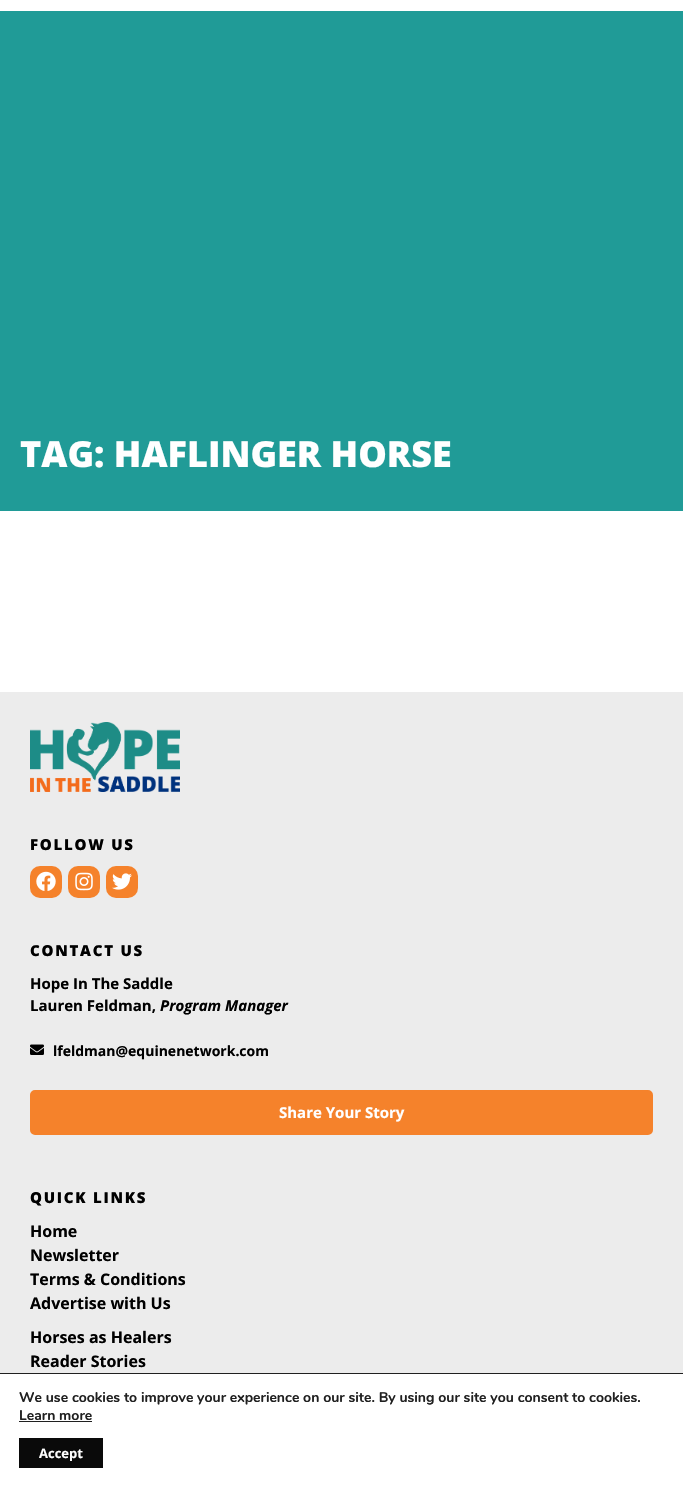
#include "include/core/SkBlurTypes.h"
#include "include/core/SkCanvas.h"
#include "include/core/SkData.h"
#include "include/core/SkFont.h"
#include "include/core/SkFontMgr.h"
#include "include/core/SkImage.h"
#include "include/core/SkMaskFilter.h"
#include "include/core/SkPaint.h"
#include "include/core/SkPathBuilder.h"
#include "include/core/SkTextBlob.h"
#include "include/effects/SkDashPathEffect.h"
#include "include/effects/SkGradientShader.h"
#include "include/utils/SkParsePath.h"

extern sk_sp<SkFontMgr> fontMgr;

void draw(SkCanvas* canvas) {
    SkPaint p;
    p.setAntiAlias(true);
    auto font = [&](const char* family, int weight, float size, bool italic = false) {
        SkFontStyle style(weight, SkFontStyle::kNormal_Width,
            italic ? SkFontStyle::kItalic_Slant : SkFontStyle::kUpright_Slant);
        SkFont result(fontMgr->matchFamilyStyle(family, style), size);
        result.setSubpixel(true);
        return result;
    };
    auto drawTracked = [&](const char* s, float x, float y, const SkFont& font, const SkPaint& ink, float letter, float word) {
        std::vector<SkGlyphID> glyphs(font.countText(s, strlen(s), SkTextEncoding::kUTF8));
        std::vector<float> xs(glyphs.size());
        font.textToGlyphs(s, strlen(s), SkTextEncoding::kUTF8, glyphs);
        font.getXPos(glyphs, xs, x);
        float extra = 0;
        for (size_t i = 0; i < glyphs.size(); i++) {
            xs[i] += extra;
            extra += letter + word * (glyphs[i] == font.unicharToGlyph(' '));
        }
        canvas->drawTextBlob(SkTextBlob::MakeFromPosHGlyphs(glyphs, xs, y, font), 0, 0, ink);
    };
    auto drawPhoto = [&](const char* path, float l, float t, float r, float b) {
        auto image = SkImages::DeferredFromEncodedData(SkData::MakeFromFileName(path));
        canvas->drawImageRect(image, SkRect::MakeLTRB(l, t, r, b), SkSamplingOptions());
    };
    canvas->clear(0xFFFFFFFF);
    p.setColor(0xFF209B97);
    canvas->drawRect(SkRect::MakeLTRB(0, 11, 683, 511), p);
    auto font1 = font("Open Sans", 800, 36);
    p.setColor(0xFFFFFFFF);
    canvas->drawString("TAG: HAFLINGER HORSE", 20, 467, font1, p);
    p.setColor(0xFFECECEC);
    canvas->drawRect(SkRect::MakeLTRB(0, 692, 683, 1373), p);
    drawPhoto("media/1.png", 30, 722, 180, 792);
    auto font2 = font("Open Sans", 800, 15);
    p.setColor(0xFF000000);
    drawTracked("FOLLOW US", 30, 850, font2, p, 1.75f, 0);
    p.setColor(0xFFF5822B);
    canvas->drawRoundRect(SkRect::MakeLTRB(30, 866, 62, 898), 10, 10, p);
    drawPhoto("media/2.png", 36, 871, 56, 891);
    canvas->drawRoundRect(SkRect::MakeLTRB(68, 866, 100, 898), 10, 10, p);
    drawPhoto("media/3.png", 75, 872, 93, 891);
    canvas->drawRoundRect(SkRect::MakeLTRB(106, 866, 138, 898), 10, 10, p);
    drawPhoto("media/4.png", 112, 873, 132, 890);
    p.setColor(0xFF000000);
    drawTracked("CONTACT US", 30, 956, font2, p, 1.75f, 0);
    auto font3 = font("Open Sans", 700, 15);
    canvas->drawString("Hope In The Saddle", 30, 989, font3, p);
    canvas->drawString("Lauren Feldman,", 30, 1011, font3, p);
    auto font4 = font("Open Sans", 700, 15, true);
    canvas->drawString("Program Manager", 160, 1011, font4, p);
    drawPhoto("media/5.png", 30, 1044, 44, 1055);
    auto font5 = font("Open Sans", 700, 14);
    canvas->drawString("lfeldman@equinenetwork.com", 53, 1056, font5, p);
    p.setColor(0xFFF5822B);
    canvas->drawRoundRect(SkRect::MakeLTRB(31.5f, 1091.5f, 651.5f, 1133.5f), 3.5f, 3.5f, p);
    p.setStyle(SkPaint::kStroke_Style);
    p.setStrokeWidth(3);
    canvas->drawRoundRect(SkRect::MakeLTRB(31.5f, 1091.5f, 651.5f, 1133.5f), 3.5f, 3.5f, p);
    p.setStyle(SkPaint::kFill_Style);
    p.setColor(0xFFFFFFFF);
    canvas->drawString("Share Your Story", 279, 1118, font3, p);
    p.setColor(0xFF000000);
    drawTracked("QUICK LINKS", 30, 1203, font2, p, 1.75f, 0);
    auto font6 = font("Open Sans", 700, 16);
    {
        const struct { const char* s; float x, y; } items[] = {
            {"Home", 30, 1237},
            {"Newsletter", 30, 1261},
            {"Terms & Conditions", 30, 1285},
            {"Advertise with Us", 30, 1309},
            {"Horses as Healers", 30, 1343},
            {"Reader Stories", 30, 1367},
        };
        for (auto [s, x, y] : items) {
            canvas->drawString(s, x, y, font6, p);
        }
    }
    p.setColor(0xFF202020);
    canvas->drawRect(SkRect::MakeLTRB(0, 1373, 683, 1374), p);
    auto font7 = font("Nunito", 700, 14);
    canvas->drawString("We use cookies to improve your experience on our site. By using our site you consent to cookies.", 19, 1402, font7, p);
    canvas->drawString("Learn more", 19, 1420, font7, p);
    canvas->drawRect(SkRect::MakeLTRB(19, 1421, 92, 1422), p);
    p.setColor(0xFF0A0A0A);
    canvas->drawRect(SkRect::MakeLTRB(19, 1438, 103, 1468), p);
    auto font8 = font("Open Sans", 700, 13);
    p.setColor(0xFFFFFFFF);
    canvas->drawString("Accept", 39, 1458, font8, p);
}
